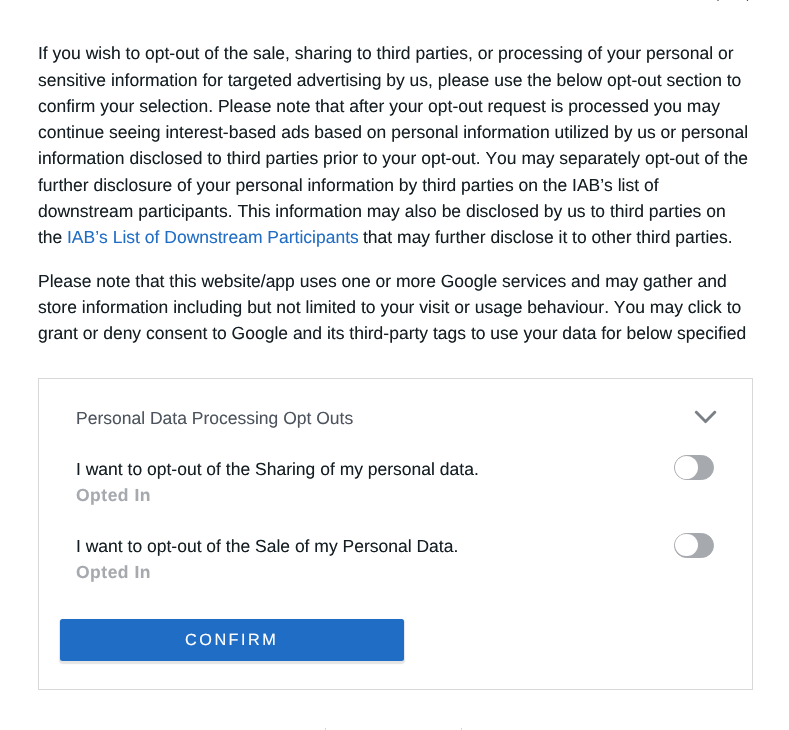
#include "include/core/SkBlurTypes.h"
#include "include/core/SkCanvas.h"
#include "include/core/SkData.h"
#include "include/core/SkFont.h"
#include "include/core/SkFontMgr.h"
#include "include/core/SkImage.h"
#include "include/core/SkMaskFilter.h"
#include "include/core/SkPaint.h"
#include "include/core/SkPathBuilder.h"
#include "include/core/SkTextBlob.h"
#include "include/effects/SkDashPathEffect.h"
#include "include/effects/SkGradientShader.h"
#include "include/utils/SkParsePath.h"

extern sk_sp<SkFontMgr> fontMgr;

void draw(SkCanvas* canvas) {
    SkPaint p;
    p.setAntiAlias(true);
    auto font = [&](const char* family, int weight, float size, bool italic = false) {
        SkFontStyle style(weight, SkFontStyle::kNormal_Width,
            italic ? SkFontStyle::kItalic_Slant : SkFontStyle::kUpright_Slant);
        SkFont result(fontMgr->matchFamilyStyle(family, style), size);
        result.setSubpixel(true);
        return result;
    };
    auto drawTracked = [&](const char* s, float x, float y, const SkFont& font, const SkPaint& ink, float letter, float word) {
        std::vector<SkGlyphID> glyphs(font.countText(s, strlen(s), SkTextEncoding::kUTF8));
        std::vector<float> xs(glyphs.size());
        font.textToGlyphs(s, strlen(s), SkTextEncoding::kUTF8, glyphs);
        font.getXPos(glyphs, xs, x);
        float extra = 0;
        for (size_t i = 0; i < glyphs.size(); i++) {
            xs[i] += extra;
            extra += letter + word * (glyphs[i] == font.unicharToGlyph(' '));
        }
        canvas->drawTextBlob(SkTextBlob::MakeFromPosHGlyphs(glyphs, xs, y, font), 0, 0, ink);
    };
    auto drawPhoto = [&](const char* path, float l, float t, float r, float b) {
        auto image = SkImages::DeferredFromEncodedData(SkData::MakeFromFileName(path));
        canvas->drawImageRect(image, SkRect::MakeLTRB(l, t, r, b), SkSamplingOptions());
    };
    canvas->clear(0xFFFFFFFF);
    p.setStyle(SkPaint::kStroke_Style);
    p.setStrokeWidth(1.3f);
    p.setStrokeCap(SkPaint::kRound_Cap);
    p.setStrokeJoin(SkPaint::kRound_Join);
    p.setColor(0xFF000000);
    canvas->drawPath(SkPathBuilder().moveTo(718, -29.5f).lineTo(747.5f, 0).moveTo(747.5f, -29.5f).lineTo(718, 0).detach(), p);
    auto font1 = font("Liberation Sans", 400, 17.5f);
    p.setStyle(SkPaint::kFill_Style);
    p.setColor(0xFF141E23);
    {
        const struct { const char* s; float x, y; } items[] = {
            {"If you wish to opt-out of the sale, sharing to third parties, or processing of your personal or", 38, 59},
            {"sensitive information for targeted advertising by us, please use the below opt-out section to", 38, 86},
            {"confirm your selection. Please note that after your opt-out request is processed you may", 38, 112},
            {"continue seeing interest-based ads based on personal information utilized by us or personal", 38, 138},
            {"information disclosed to third parties prior to your opt-out. You may separately opt-out of the", 38, 164},
            {"further disclosure of your personal information by third parties on the IAB’s list of", 38, 191},
            {"downstream participants. This information may also be disclosed by us to third parties on", 38, 217},
            {"the", 38, 243},
        };
        for (auto [s, x, y] : items) {
            canvas->drawString(s, x, y, font1, p);
        }
    }
    p.setColor(0xFF206DC5);
    canvas->drawString("IAB’s List of Downstream Participants", 67, 243, font1, p);
    p.setColor(0xFF141E23);
    {
        const struct { const char* s; float x, y; } items[] = {
            {"that may further disclose it to other third parties.", 363, 243},
            {"Please note that this website/app uses one or more Google services and may gather and", 38, 287},
            {"store information including but not limited to your visit or usage behaviour. You may click to", 38, 313},
            {"grant or deny consent to Google and its third-party tags to use your data for below specified", 38, 339},
        };
        for (auto [s, x, y] : items) {
            canvas->drawString(s, x, y, font1, p);
        }
    }
    p.setStyle(SkPaint::kStroke_Style);
    p.setStrokeWidth(1);
    p.setStrokeCap(SkPaint::kButt_Cap);
    p.setStrokeJoin(SkPaint::kMiter_Join);
    p.setColor(0xFFD8D8D8);
    canvas->drawRect(SkRect::MakeLTRB(38.5f, 378.5f, 752.5f, 689.5f), p);
    p.setStyle(SkPaint::kFill_Style);
    p.setColor(0xFF4D545D);
    canvas->drawString("Personal Data Processing Opt Outs", 76, 424, font1, p);
    drawPhoto("media/1.png", 694, 410, 717, 424);
    p.setColor(0xFF141E23);
    canvas->drawString("I want to opt-out of the Sharing of my personal data.", 76, 475, font1, p);
    p.setColor(0xFFA6A9AE);
    canvas->drawRoundRect(SkRect::MakeLTRB(674.5f, 455.5f, 713.5f, 479.5f), 12, 12, p);
    p.setStyle(SkPaint::kStroke_Style);
    canvas->drawRoundRect(SkRect::MakeLTRB(674.5f, 455.5f, 713.5f, 479.5f), 12, 12, p);
    p.setStyle(SkPaint::kFill_Style);
    p.setColor(0xFFFFFFFF);
    canvas->drawCircle(686.5f, 467.5f, 11.5f, p);
    auto font2 = font("Liberation Sans", 700, 17.5f);
    p.setColor(0xFFA6A9AE);
    drawTracked("Opted In", 76, 501, font2, p, 0.5f, 0);
    p.setColor(0xFF141E23);
    canvas->drawString("I want to opt-out of the Sale of my Personal Data.", 76, 552, font1, p);
    p.setColor(0xFFA6A9AE);
    canvas->drawRoundRect(SkRect::MakeLTRB(674.5f, 533.5f, 713.5f, 557.5f), 12, 12, p);
    p.setStyle(SkPaint::kStroke_Style);
    canvas->drawRoundRect(SkRect::MakeLTRB(674.5f, 533.5f, 713.5f, 557.5f), 12, 12, p);
    p.setStyle(SkPaint::kFill_Style);
    p.setColor(0xFFFFFFFF);
    canvas->drawRoundRect(SkRect::MakeLTRB(675, 534, 698, 556), 11, 11, p);
    p.setColor(0xFFA6A9AE);
    drawTracked("Opted In", 76, 578, font2, p, 0.5f, 0);
    p.setColor(0x1A000000);
    p.setMaskFilter(SkMaskFilter::MakeBlur(kNormal_SkBlurStyle, 0.5f));
    canvas->drawRoundRect(SkRect::MakeLTRB(59, 619, 405, 664), 4, 4, p);
    p.setMaskFilter(nullptr);
    p.setColor(0xFF206DC5);
    canvas->drawRoundRect(SkRect::MakeLTRB(60, 619, 404, 661), 2.5f, 2.5f, p);
    auto font3 = font("Liberation Sans", 400, 16.25f);
    p.setColor(0xFFFFFFFF);
    drawTracked("CONFIRM", 185, 645, font3, p, 2.5f, 0);
    p.setColor(0xFFD8D8D8);
    canvas->drawRect(SkRect::MakeLTRB(325, 728, 326, 730), p);
    canvas->drawRect(SkRect::MakeLTRB(461, 728, 462, 730), p);
}
